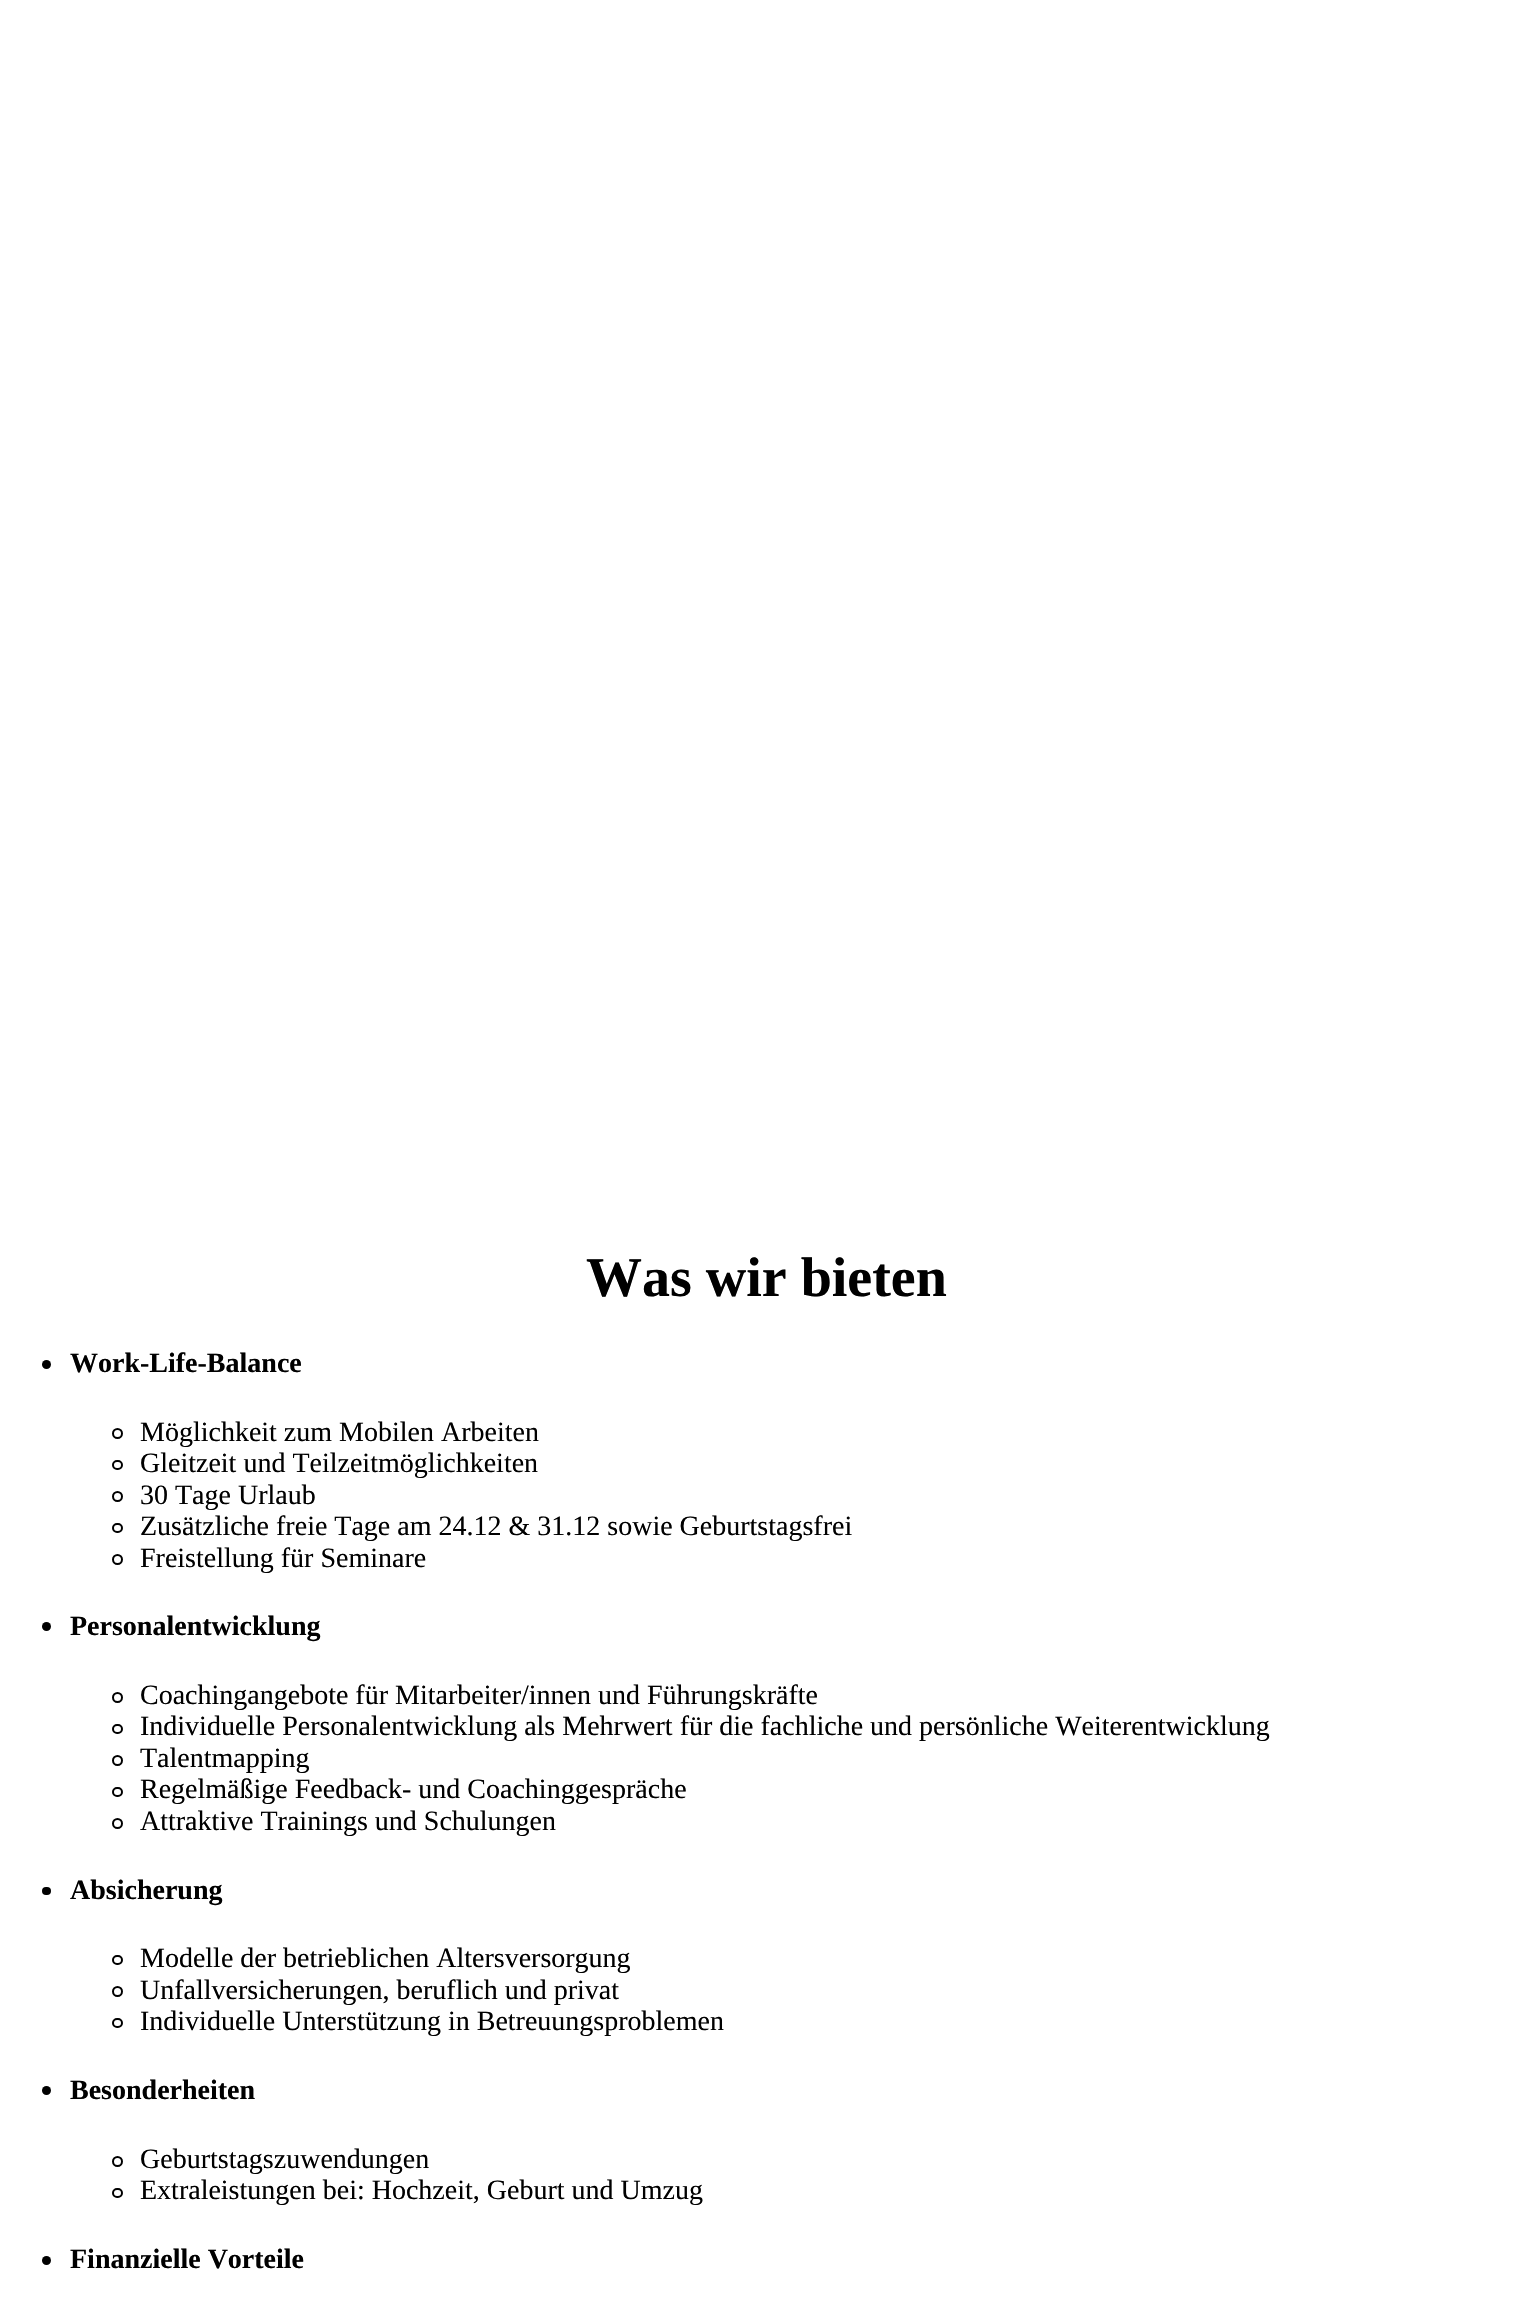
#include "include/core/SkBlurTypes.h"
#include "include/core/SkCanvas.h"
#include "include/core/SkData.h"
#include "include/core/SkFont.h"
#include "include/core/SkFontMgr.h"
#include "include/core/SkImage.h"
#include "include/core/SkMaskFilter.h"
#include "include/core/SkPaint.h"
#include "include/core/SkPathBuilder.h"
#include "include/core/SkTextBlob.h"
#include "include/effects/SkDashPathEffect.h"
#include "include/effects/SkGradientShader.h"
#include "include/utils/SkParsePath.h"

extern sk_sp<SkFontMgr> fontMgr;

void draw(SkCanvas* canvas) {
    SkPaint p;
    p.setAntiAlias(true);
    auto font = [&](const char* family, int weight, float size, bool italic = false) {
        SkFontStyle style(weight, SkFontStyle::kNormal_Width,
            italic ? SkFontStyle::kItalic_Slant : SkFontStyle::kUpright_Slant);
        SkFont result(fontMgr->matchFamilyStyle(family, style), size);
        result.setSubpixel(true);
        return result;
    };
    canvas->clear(0xFFFFFFFF);
    auto font1 = font("Liberation Serif", 700, 56);
    p.setColor(0xFF000000);
    canvas->drawString("Was wir bieten", 586, 1296, font1, p);
    canvas->drawCircle(46.5f, 1364.5f, 4.5f, p);
    auto font2 = font("Liberation Serif", 700, 28);
    canvas->drawString("Work-Life-Balance", 70, 1372, font2, p);
    p.setStyle(SkPaint::kStroke_Style);
    p.setStrokeWidth(2);
    canvas->drawCircle(117.5f, 1433.5f, 4.5f, p);
    auto font3 = font("Liberation Serif", 400, 28);
    p.setStyle(SkPaint::kFill_Style);
    canvas->drawString("Möglichkeit zum Mobilen Arbeiten", 140, 1441, font3, p);
    p.setStyle(SkPaint::kStroke_Style);
    canvas->drawRoundRect(SkRect::MakeLTRB(113, 1461, 122, 1469), 4, 4, p);
    p.setStyle(SkPaint::kFill_Style);
    canvas->drawString("Gleitzeit und Teilzeitmöglichkeiten", 140, 1472, font3, p);
    p.setStyle(SkPaint::kStroke_Style);
    canvas->drawCircle(117.5f, 1496.5f, 4.5f, p);
    p.setStyle(SkPaint::kFill_Style);
    canvas->drawString("30 Tage Urlaub", 140, 1504, font3, p);
    p.setStyle(SkPaint::kStroke_Style);
    canvas->drawRoundRect(SkRect::MakeLTRB(113, 1524, 122, 1532), 4, 4, p);
    p.setStyle(SkPaint::kFill_Style);
    canvas->drawString("Zusätzliche freie Tage am 24.12 & 31.12 sowie Geburtstagsfrei", 140, 1535, font3, p);
    p.setStyle(SkPaint::kStroke_Style);
    canvas->drawCircle(117.5f, 1559.5f, 4.5f, p);
    p.setStyle(SkPaint::kFill_Style);
    canvas->drawString("Freistellung für Seminare", 140, 1567, font3, p);
    canvas->drawCircle(46.5f, 1626.5f, 4.5f, p);
    canvas->drawString("Personalentwicklung", 70, 1635, font2, p);
    p.setStyle(SkPaint::kStroke_Style);
    canvas->drawCircle(117.5f, 1697.5f, 4.5f, p);
    p.setStyle(SkPaint::kFill_Style);
    canvas->drawString("Coachingangebote für Mitarbeiter/innen und Führungskräfte", 140, 1704, font3, p);
    p.setStyle(SkPaint::kStroke_Style);
    canvas->drawRoundRect(SkRect::MakeLTRB(113, 1725, 122, 1733), 4, 4, p);
    p.setStyle(SkPaint::kFill_Style);
    canvas->drawString("Individuelle Personalentwicklung als Mehrwert für die fachliche und persönliche Weiterentwicklung", 140, 1735, font3, p);
    p.setStyle(SkPaint::kStroke_Style);
    canvas->drawCircle(117.5f, 1760.5f, 4.5f, p);
    p.setStyle(SkPaint::kFill_Style);
    canvas->drawString("Talentmapping", 140, 1767, font3, p);
    p.setStyle(SkPaint::kStroke_Style);
    canvas->drawRoundRect(SkRect::MakeLTRB(113, 1788, 122, 1796), 4, 4, p);
    p.setStyle(SkPaint::kFill_Style);
    canvas->drawString("Regelmäßige Feedback- und Coachinggespräche", 140, 1798, font3, p);
    p.setStyle(SkPaint::kStroke_Style);
    canvas->drawCircle(117.5f, 1823.5f, 4.5f, p);
    p.setStyle(SkPaint::kFill_Style);
    canvas->drawString("Attraktive Trainings und Schulungen", 140, 1830, font3, p);
    canvas->drawRoundRect(SkRect::MakeLTRB(42, 1887, 51, 1895), 4, 4, p);
    canvas->drawString("Absicherung", 70, 1899, font2, p);
    p.setStyle(SkPaint::kStroke_Style);
    canvas->drawRoundRect(SkRect::MakeLTRB(113, 1956, 122, 1964), 4, 4, p);
    p.setStyle(SkPaint::kFill_Style);
    canvas->drawString("Modelle der betrieblichen Altersversorgung", 140, 1967, font3, p);
    p.setStyle(SkPaint::kStroke_Style);
    canvas->drawCircle(117.5f, 1991.5f, 4.5f, p);
    p.setStyle(SkPaint::kFill_Style);
    canvas->drawString("Unfallversicherungen, beruflich und privat", 140, 1999, font3, p);
    p.setStyle(SkPaint::kStroke_Style);
    canvas->drawRoundRect(SkRect::MakeLTRB(113, 2019, 122, 2027), 4, 4, p);
    p.setStyle(SkPaint::kFill_Style);
    canvas->drawString("Individuelle Unterstützung in Betreuungsproblemen", 140, 2030, font3, p);
    canvas->drawCircle(46.5f, 2090.5f, 4.5f, p);
    canvas->drawString("Besonderheiten", 70, 2099, font2, p);
    p.setStyle(SkPaint::kStroke_Style);
    canvas->drawCircle(117.5f, 2161.5f, 4.5f, p);
    p.setStyle(SkPaint::kFill_Style);
    canvas->drawString("Geburtstagszuwendungen", 140, 2168, font3, p);
    p.setStyle(SkPaint::kStroke_Style);
    canvas->drawRoundRect(SkRect::MakeLTRB(113, 2189, 122, 2197), 4, 4, p);
    p.setStyle(SkPaint::kFill_Style);
    canvas->drawString("Extraleistungen bei: Hochzeit, Geburt und Umzug", 140, 2199, font3, p);
    canvas->drawCircle(46.5f, 2260.5f, 4.5f, p);
    canvas->drawString("Finanzielle Vorteile", 70, 2268, font2, p);
}
